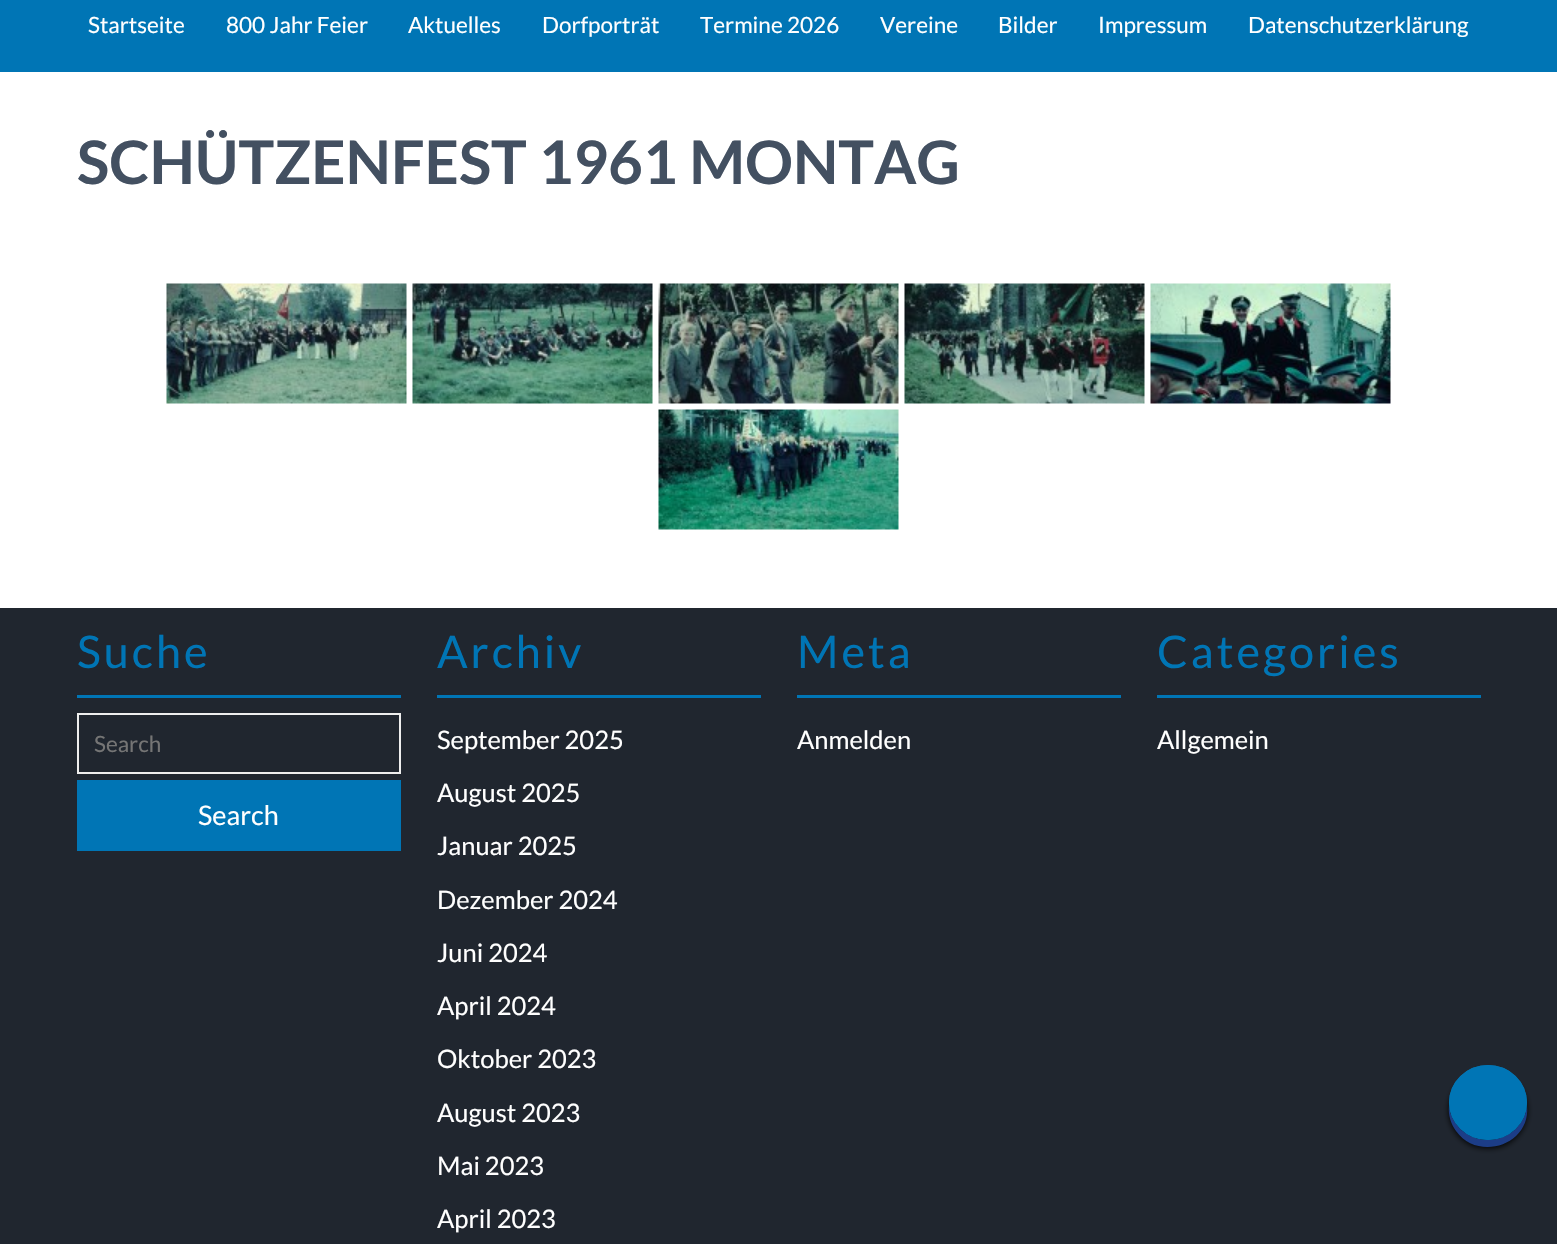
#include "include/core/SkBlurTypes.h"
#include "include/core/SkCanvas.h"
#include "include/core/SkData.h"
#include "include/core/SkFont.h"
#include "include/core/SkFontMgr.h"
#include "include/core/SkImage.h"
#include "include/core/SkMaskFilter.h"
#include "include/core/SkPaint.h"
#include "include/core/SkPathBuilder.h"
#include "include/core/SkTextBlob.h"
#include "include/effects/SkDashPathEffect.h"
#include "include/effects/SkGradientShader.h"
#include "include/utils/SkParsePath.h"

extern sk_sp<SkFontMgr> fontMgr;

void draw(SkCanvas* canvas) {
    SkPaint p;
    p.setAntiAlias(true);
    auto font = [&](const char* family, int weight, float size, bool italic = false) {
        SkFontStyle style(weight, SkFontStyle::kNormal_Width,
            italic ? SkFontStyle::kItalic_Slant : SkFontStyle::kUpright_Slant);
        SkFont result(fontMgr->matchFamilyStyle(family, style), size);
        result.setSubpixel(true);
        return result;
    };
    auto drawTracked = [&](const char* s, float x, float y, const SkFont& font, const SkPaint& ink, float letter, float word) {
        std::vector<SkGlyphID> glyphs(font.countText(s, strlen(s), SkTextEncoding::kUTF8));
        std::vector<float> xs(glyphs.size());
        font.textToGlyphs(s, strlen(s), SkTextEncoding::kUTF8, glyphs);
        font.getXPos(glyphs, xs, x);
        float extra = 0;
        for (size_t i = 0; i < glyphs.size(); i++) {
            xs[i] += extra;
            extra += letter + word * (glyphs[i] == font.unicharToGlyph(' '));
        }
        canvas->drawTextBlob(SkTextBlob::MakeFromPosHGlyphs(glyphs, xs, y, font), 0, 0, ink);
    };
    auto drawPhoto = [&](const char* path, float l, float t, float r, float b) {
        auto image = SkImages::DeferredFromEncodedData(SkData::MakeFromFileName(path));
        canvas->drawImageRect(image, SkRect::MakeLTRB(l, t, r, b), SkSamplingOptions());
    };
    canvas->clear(0xFFFFFFFF);
    p.setColor(0xFF0075B5);
    canvas->drawRect(SkRect::MakeLTRB(0, 0, 1557, 72), p);
    auto font1 = font("Lato", 400, 22.5f);
    p.setColor(0xFFFFFFFF);
    {
        const struct { const char* s; float x, y; } items[] = {
            {"Startseite", 88, 33},
            {"800 Jahr Feier", 226, 33},
            {"Aktuelles", 408, 33},
            {"Dorfporträt", 542, 33},
            {"Termine 2026", 700, 33},
            {"Vereine", 880, 33},
            {"Bilder", 998, 33},
            {"Impressum", 1098, 33},
            {"Datenschutzerklärung", 1248, 33},
        };
        for (auto [s, x, y] : items) {
            canvas->drawString(s, x, y, font1, p);
        }
    }
    auto font2 = font("Lato", 700, 60);
    p.setColor(0xFF435061);
    canvas->drawString("SCHÜTZENFEST 1961 MONTAG", 77, 184, font2, p);
    drawPhoto("media/1.png", 166, 283, 407, 404);
    drawPhoto("media/2.png", 412, 283, 653, 404);
    drawPhoto("media/3.png", 658, 283, 899, 404);
    drawPhoto("media/4.png", 904, 283, 1145, 404);
    drawPhoto("media/5.png", 1150, 283, 1391, 404);
    drawPhoto("media/6.png", 658, 409, 899, 530);
    p.setColor(0xFF20262F);
    canvas->drawRect(SkRect::MakeLTRB(0, 608, 1557, 1244), p);
    p.setColor(0xFF0075B5);
    canvas->drawRect(SkRect::MakeLTRB(77, 695, 401, 698), p);
    auto font3 = font("Lato", 400, 45);
    drawTracked("Suche", 77, 668, font3, p, 3, 0);
    p.setStyle(SkPaint::kStroke_Style);
    p.setStrokeWidth(2);
    p.setColor(0xFFEEEEEE);
    canvas->drawRect(SkRect::MakeLTRB(78, 714, 400, 773), p);
    p.setStyle(SkPaint::kFill_Style);
    p.setColor(0xFF757575);
    canvas->drawString("Search", 94, 752, font1, p);
    p.setColor(0xFF0075B5);
    canvas->drawRect(SkRect::MakeLTRB(77, 780, 401, 851), p);
    auto font4 = font("Lato", 400, 27);
    p.setColor(0xFFFFFFFF);
    canvas->drawString("Search", 198, 825, font4, p);
    p.setColor(0xFF0075B5);
    canvas->drawRect(SkRect::MakeLTRB(437, 695, 761, 698), p);
    drawTracked("Archiv", 437, 668, font3, p, 3, 0);
    auto font5 = font("Lato", 400, 25.5f);
    p.setColor(0xFFFFFFFF);
    {
        const struct { const char* s; float x, y; } items[] = {
            {"September 2025", 437, 749},
            {"August 2025", 437, 802},
            {"Januar 2025", 437, 855},
            {"Dezember 2024", 437, 909},
            {"Juni 2024", 437, 962},
            {"April 2024", 437, 1015},
            {"Oktober 2023", 437, 1068},
            {"August 2023", 437, 1122},
            {"Mai 2023", 437, 1175},
            {"April 2023", 437, 1228},
        };
        for (auto [s, x, y] : items) {
            canvas->drawString(s, x, y, font5, p);
        }
    }
    p.setColor(0xFF0075B5);
    canvas->drawRect(SkRect::MakeLTRB(797, 695, 1121, 698), p);
    drawTracked("Meta", 797, 668, font3, p, 3, 0);
    p.setColor(0xFFFFFFFF);
    canvas->drawString("Anmelden", 797, 749, font5, p);
    p.setColor(0xFF0075B5);
    canvas->drawRect(SkRect::MakeLTRB(1157, 695, 1481, 698), p);
    drawTracked("Categories", 1157, 668, font3, p, 3, 0);
    p.setColor(0xFFFFFFFF);
    canvas->drawString("Allgemein", 1157, 749, font5, p);
    p.setColor(0xFF000000);
    p.setMaskFilter(SkMaskFilter::MakeBlur(kNormal_SkBlurStyle, 3));
    canvas->drawRoundRect(SkRect::MakeLTRB(1449, 1073, 1527, 1148), 37.5f, 37.5f, p);
    p.setMaskFilter(nullptr);
    p.setColor(0xFF1C3D87);
    canvas->drawPath(SkPathBuilder().moveTo(1449, 1106).cubicTo(1448, 1115, 1451, 1124, 1456, 1131).cubicTo(1478, 1162, 1531, 1145, 1527, 1106).cubicTo(1525, 1125, 1508, 1140, 1488, 1140).cubicTo(1468, 1140, 1451, 1125, 1449, 1106).close().detach(), p);
    p.setColor(0xFF0075B5);
    canvas->drawOval(SkRect::MakeLTRB(1449, 1065, 1527, 1140), p);
    p.setStyle(SkPaint::kStroke_Style);
    p.setStrokeWidth(3);
    canvas->drawPath(SkPathBuilder().moveTo(1488, 1066.5f).cubicTo(1508.5f, 1066.5f, 1525.5f, 1082.5f, 1525.5f, 1102.5f).cubicTo(1525.5f, 1122.5f, 1508.5f, 1138.5f, 1488, 1138.5f).cubicTo(1467.5f, 1138.5f, 1450.5f, 1122.5f, 1450.5f, 1102.5f).cubicTo(1450.5f, 1082.5f, 1467.5f, 1066.5f, 1488, 1066.5f).close().detach(), p);
}
